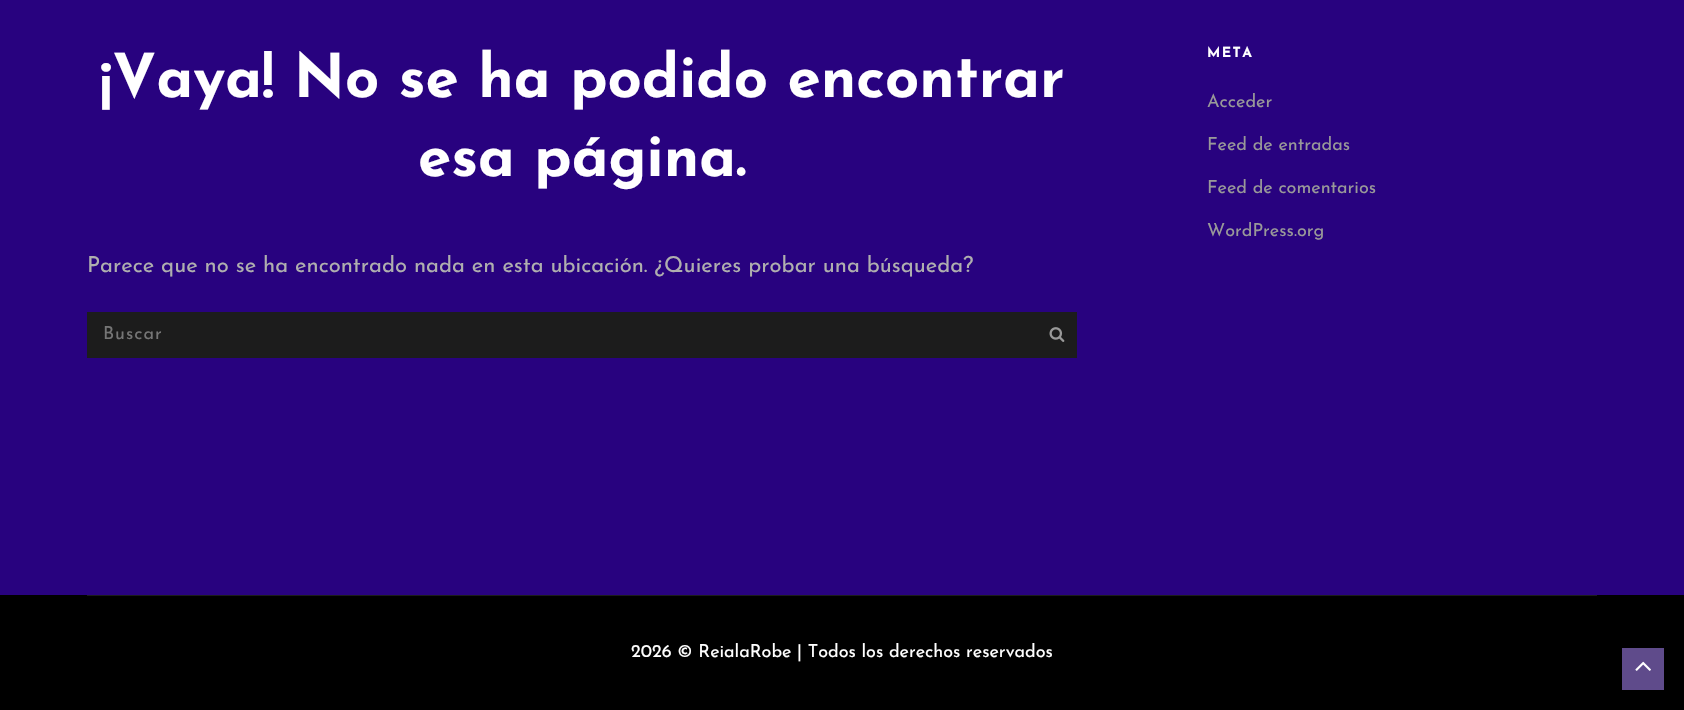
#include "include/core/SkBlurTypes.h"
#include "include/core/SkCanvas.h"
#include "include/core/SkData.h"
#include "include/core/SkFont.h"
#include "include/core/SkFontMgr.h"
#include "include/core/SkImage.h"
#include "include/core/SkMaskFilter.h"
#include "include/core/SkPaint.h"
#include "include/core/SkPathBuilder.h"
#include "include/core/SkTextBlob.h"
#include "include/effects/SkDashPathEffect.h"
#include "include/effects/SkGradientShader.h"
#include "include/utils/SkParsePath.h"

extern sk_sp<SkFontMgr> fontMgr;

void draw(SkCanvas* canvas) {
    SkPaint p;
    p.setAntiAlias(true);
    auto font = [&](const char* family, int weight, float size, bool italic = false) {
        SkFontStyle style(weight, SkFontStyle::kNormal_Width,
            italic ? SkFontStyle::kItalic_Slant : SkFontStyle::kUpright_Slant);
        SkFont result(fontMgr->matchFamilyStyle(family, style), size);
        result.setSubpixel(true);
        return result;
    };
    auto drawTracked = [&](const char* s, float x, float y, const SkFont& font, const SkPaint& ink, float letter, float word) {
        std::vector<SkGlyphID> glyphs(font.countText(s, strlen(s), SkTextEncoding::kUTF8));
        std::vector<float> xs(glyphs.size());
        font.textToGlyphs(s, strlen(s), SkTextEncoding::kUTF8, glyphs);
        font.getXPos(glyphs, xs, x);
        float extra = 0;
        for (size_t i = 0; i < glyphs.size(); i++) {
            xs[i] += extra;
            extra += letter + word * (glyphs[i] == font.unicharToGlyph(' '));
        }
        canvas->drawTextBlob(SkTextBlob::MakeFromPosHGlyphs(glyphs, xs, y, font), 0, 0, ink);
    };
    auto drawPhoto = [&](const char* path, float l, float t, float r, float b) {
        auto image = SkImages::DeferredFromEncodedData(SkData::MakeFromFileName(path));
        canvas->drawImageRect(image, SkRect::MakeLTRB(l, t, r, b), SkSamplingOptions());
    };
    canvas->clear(0xFF28027F);
    auto font1 = font("Josefin Sans", 700, 60);
    p.setColor(0xFFFFFFFF);
    canvas->drawString("¡Vaya! No se ha podido encontrar", 100, 97, font1, p);
    canvas->drawString("esa página.", 418, 176, font1, p);
    auto font2 = font("Josefin Sans", 400, 22);
    p.setColor(0xFFAFAFAF);
    canvas->drawString("Parece que no se ha encontrado nada en esta ubicación. ¿Quieres probar una búsqueda?", 87, 272, font2, p);
    p.setColor(0xFF1C1C1C);
    canvas->drawRect(SkRect::MakeLTRB(87, 312, 1077, 358), p);
    auto font3 = font("Josefin Sans", 400, 18);
    p.setColor(0xFF757575);
    drawTracked("Buscar", 103, 339, font3, p, 1, 0);
    drawPhoto("media/1.png", 1049, 327, 1065, 342);
    auto font4 = font("Josefin Sans", 700, 14);
    p.setColor(0xFFFFFFFF);
    drawTracked("META", 1207, 57, font4, p, 1.5f, 0);
    p.setColor(0xFF999999);
    {
        const struct { const char* s; float x, y; } items[] = {
            {"Acceder", 1207, 107},
            {"Feed de entradas", 1207, 150},
            {"Feed de comentarios", 1207, 193},
            {"WordPress.org", 1207, 236},
        };
        for (auto [s, x, y] : items) {
            canvas->drawString(s, x, y, font3, p);
        }
    }
    p.setColor(0xFF000000);
    canvas->drawRect(SkRect::MakeLTRB(0, 595, 1684, 710), p);
    p.setColor(0xFF1C1C1C);
    canvas->drawRect(SkRect::MakeLTRB(87, 595, 1597, 596), p);
    p.setColor(0xFFFFFFFF);
    canvas->drawString("2026 © ReialaRobe | Todos los derechos reservados", 631, 657, font3, p);
    p.setColor(0xFF5F4B8B);
    canvas->drawRect(SkRect::MakeLTRB(1622, 648, 1664, 690), p);
    drawPhoto("media/2.png", 1635, 661, 1651, 671);
}
